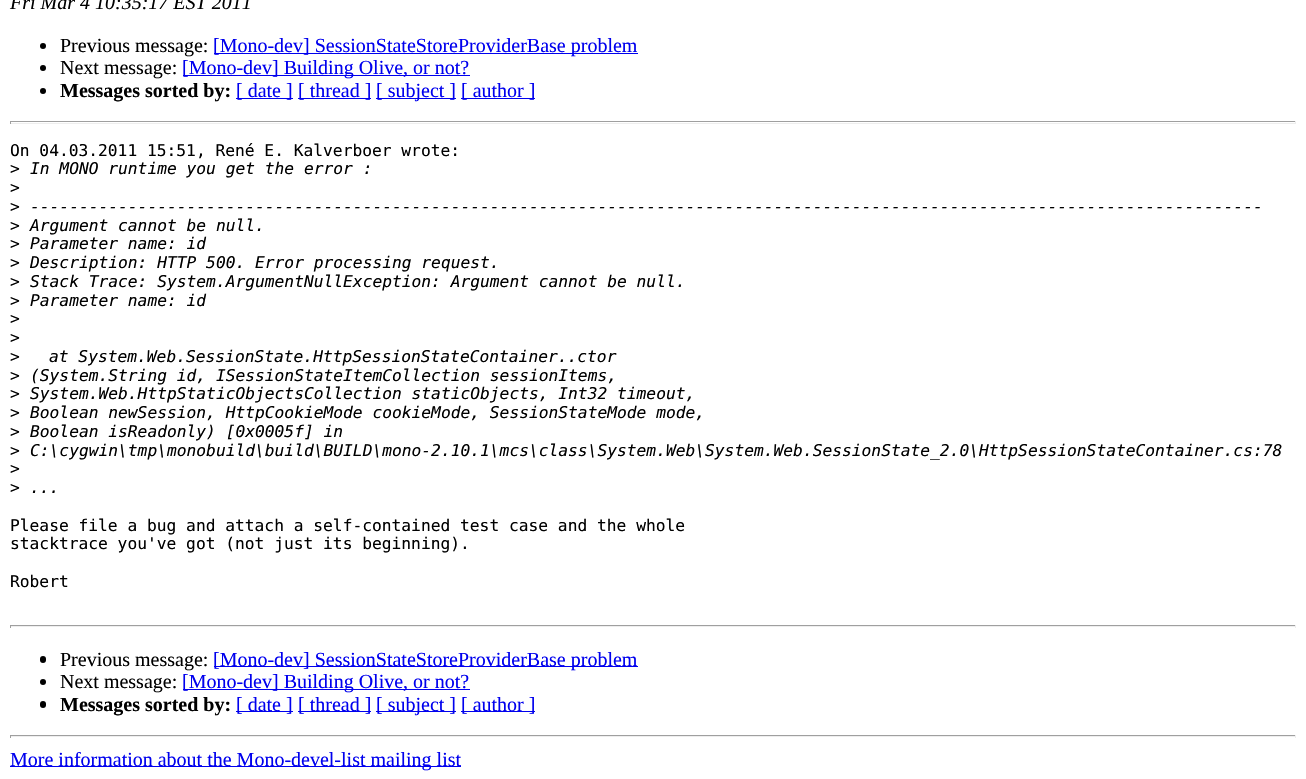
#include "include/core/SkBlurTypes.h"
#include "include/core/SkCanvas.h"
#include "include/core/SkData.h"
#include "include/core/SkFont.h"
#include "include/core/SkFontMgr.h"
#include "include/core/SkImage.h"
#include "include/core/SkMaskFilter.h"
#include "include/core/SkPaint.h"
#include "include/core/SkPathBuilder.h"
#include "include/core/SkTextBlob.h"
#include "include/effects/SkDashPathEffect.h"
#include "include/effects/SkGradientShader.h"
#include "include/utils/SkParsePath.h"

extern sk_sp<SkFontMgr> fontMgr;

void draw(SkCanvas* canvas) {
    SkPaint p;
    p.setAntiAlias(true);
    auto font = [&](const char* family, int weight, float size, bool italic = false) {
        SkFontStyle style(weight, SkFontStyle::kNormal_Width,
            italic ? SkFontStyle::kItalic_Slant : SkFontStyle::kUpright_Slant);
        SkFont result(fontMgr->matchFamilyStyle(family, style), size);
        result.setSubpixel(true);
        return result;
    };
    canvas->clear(0xFFFFFFFF);
    auto font1 = font("Liberation Serif", 400, 20, true);
    p.setColor(0xFF000000);
    canvas->drawString("Fri Mar 4 10:35:17 EST 2011", 10, 9, font1, p);
    canvas->drawCircle(43, 46, 3, p);
    auto font2 = font("Liberation Serif", 400, 20);
    canvas->drawString("Previous message:", 60, 52, font2, p);
    p.setColor(0xFF0000EE);
    canvas->drawRect(SkRect::MakeLTRB(214, 53, 638, 54), p);
    canvas->drawString("[Mono-dev] SessionStateStoreProviderBase problem", 213, 52, font2, p);
    p.setColor(0xFF000000);
    canvas->drawCircle(43, 68, 3, p);
    canvas->drawString("Next message:", 60, 74, font2, p);
    p.setColor(0xFF0000EE);
    canvas->drawRect(SkRect::MakeLTRB(183, 75, 470, 76), p);
    canvas->drawString("[Mono-dev] Building Olive, or not?", 182, 74, font2, p);
    p.setColor(0xFF000000);
    canvas->drawCircle(43, 91, 3, p);
    auto font3 = font("Liberation Serif", 700, 20);
    canvas->drawString("Messages sorted by:", 60, 97, font3, p);
    p.setColor(0xFF0000EE);
    canvas->drawRect(SkRect::MakeLTRB(236, 98, 293, 99), p);
    canvas->drawString("[ date ]", 236, 97, font2, p);
    canvas->drawRect(SkRect::MakeLTRB(298, 98, 371, 99), p);
    canvas->drawString("[ thread ]", 298, 97, font2, p);
    canvas->drawRect(SkRect::MakeLTRB(376, 98, 456, 99), p);
    canvas->drawString("[ subject ]", 376, 97, font2, p);
    canvas->drawRect(SkRect::MakeLTRB(461, 98, 535, 99), p);
    canvas->drawString("[ author ]", 461, 97, font2, p);
    {
        const struct { float l, t, r, b; SkColor color; } items[] = {
            {10, 121, 1296, 122, 0xFF9F9F9F},
            {1295, 121, 1296, 124, 0xFFEEEEEE},
            {10, 123, 1296, 124, 0xFFEEEEEE},
            {10, 121, 11, 124, 0xFF9F9F9F},
        };
        for (auto [l, t, r, b, color] : items) {
            p.setColor(color);
            canvas->drawRect(SkRect::MakeLTRB(l, t, r, b), p);
        }
    }
    auto font4 = font("DejaVu Sans Mono", 400, 16.25f);
    p.setColor(0xFF000000);
    canvas->drawString("On 04.03.2011 15:51, René E. Kalverboer wrote:", 10, 156, font4, p);
    canvas->drawString(">", 10, 174, font4, p);
    auto font5 = font("DejaVu Sans Mono", 400, 16.25f, true);
    canvas->drawString("In MONO runtime you get the error :", 30, 174, font5, p);
    canvas->drawString(">", 10, 193, font4, p);
    canvas->drawString(">", 10, 212, font4, p);
    canvas->drawString("------------------------------------------------------------------------------------------------------------------------------", 30, 212, font5, p);
    canvas->drawString(">", 10, 231, font4, p);
    canvas->drawString("Argument cannot be null.", 30, 231, font5, p);
    canvas->drawString(">", 10, 249, font4, p);
    canvas->drawString("Parameter name: id", 30, 249, font5, p);
    canvas->drawString(">", 10, 268, font4, p);
    canvas->drawString("Description: HTTP 500. Error processing request.", 30, 268, font5, p);
    canvas->drawString(">", 10, 287, font4, p);
    canvas->drawString("Stack Trace: System.ArgumentNullException: Argument cannot be null.", 30, 287, font5, p);
    canvas->drawString(">", 10, 306, font4, p);
    canvas->drawString("Parameter name: id", 30, 306, font5, p);
    {
        const struct { const char* s; float x, y; } items[] = {
            {">", 10, 324},
            {">", 10, 343},
            {">", 10, 362},
        };
        for (auto [s, x, y] : items) {
            canvas->drawString(s, x, y, font4, p);
        }
    }
    canvas->drawString("at System.Web.SessionState.HttpSessionStateContainer..ctor", 49, 362, font5, p);
    canvas->drawString(">", 10, 381, font4, p);
    canvas->drawString("(System.String id, ISessionStateItemCollection sessionItems,", 30, 381, font5, p);
    canvas->drawString(">", 10, 399, font4, p);
    canvas->drawString("System.Web.HttpStaticObjectsCollection staticObjects, Int32 timeout,", 30, 399, font5, p);
    canvas->drawString(">", 10, 418, font4, p);
    canvas->drawString("Boolean newSession, HttpCookieMode cookieMode, SessionStateMode mode,", 30, 418, font5, p);
    canvas->drawString(">", 10, 437, font4, p);
    canvas->drawString("Boolean isReadonly) [0x0005f] in", 30, 437, font5, p);
    canvas->drawString(">", 10, 456, font4, p);
    canvas->drawString("C:\\cygwin\\tmp\\monobuild\\build\\BUILD\\mono-2.10.1\\mcs\\class\\System.Web\\System.Web.SessionState_2.0\\HttpSessionStateContainer.cs:78", 30, 456, font5, p);
    canvas->drawString(">", 10, 474, font4, p);
    canvas->drawString(">", 10, 493, font4, p);
    canvas->drawString("...", 30, 493, font5, p);
    {
        const struct { const char* s; float x, y; } items[] = {
            {"Please file a bug and attach a self-contained test case and the whole", 10, 531},
            {"stacktrace you've got (not just its beginning).", 10, 549},
            {"Robert", 10, 587},
        };
        for (auto [s, x, y] : items) {
            canvas->drawString(s, x, y, font4, p);
        }
    }
    {
        const struct { float l, t, r, b; SkColor color; } items[] = {
            {10, 625, 1296, 626, 0xFF9F9F9F},
            {1295, 625, 1296, 628, 0xFFEEEEEE},
            {10, 626, 1296, 627, 0xFFEEEEEE},
            {10, 625, 11, 628, 0xFF9F9F9F},
        };
        for (auto [l, t, r, b, color] : items) {
            p.setColor(color);
            canvas->drawRect(SkRect::MakeLTRB(l, t, r, b), p);
        }
    }
    p.setColor(0xFF000000);
    canvas->drawRoundRect(SkRect::MakeLTRB(40, 656, 46, 663), 3, 3, p);
    canvas->drawString("Previous message:", 60, 666, font2, p);
    p.setColor(0xFF0000EE);
    canvas->drawRect(SkRect::MakeLTRB(214, 666, 638, 667), p);
    canvas->drawString("[Mono-dev] SessionStateStoreProviderBase problem", 213, 666, font2, p);
    p.setColor(0xFF000000);
    canvas->drawCircle(43, 682, 3, p);
    canvas->drawString("Next message:", 60, 688, font2, p);
    p.setColor(0xFF0000EE);
    canvas->drawRect(SkRect::MakeLTRB(183, 689, 470, 690), p);
    canvas->drawString("[Mono-dev] Building Olive, or not?", 182, 688, font2, p);
    p.setColor(0xFF000000);
    canvas->drawRoundRect(SkRect::MakeLTRB(40, 701, 46, 708), 3, 3, p);
    canvas->drawString("Messages sorted by:", 60, 711, font3, p);
    p.setColor(0xFF0000EE);
    canvas->drawRect(SkRect::MakeLTRB(236, 711, 293, 712), p);
    canvas->drawString("[ date ]", 236, 711, font2, p);
    canvas->drawRect(SkRect::MakeLTRB(298, 711, 371, 712), p);
    canvas->drawString("[ thread ]", 298, 711, font2, p);
    canvas->drawRect(SkRect::MakeLTRB(376, 711, 456, 712), p);
    canvas->drawString("[ subject ]", 376, 711, font2, p);
    canvas->drawRect(SkRect::MakeLTRB(461, 711, 535, 712), p);
    canvas->drawString("[ author ]", 461, 711, font2, p);
    {
        const struct { float l, t, r, b; SkColor color; } items[] = {
            {10, 735, 1296, 736, 0xFF9F9F9F},
            {1295, 735, 1296, 738, 0xFFEEEEEE},
            {10, 736, 1296, 737, 0xFFEEEEEE},
            {10, 735, 11, 738, 0xFF9F9F9F},
            {10, 766, 461, 767, 0xFF0000EE},
        };
        for (auto [l, t, r, b, color] : items) {
            p.setColor(color);
            canvas->drawRect(SkRect::MakeLTRB(l, t, r, b), p);
        }
    }
    canvas->drawString("More information about the Mono-devel-list mailing list", 10, 766, font2, p);
}
